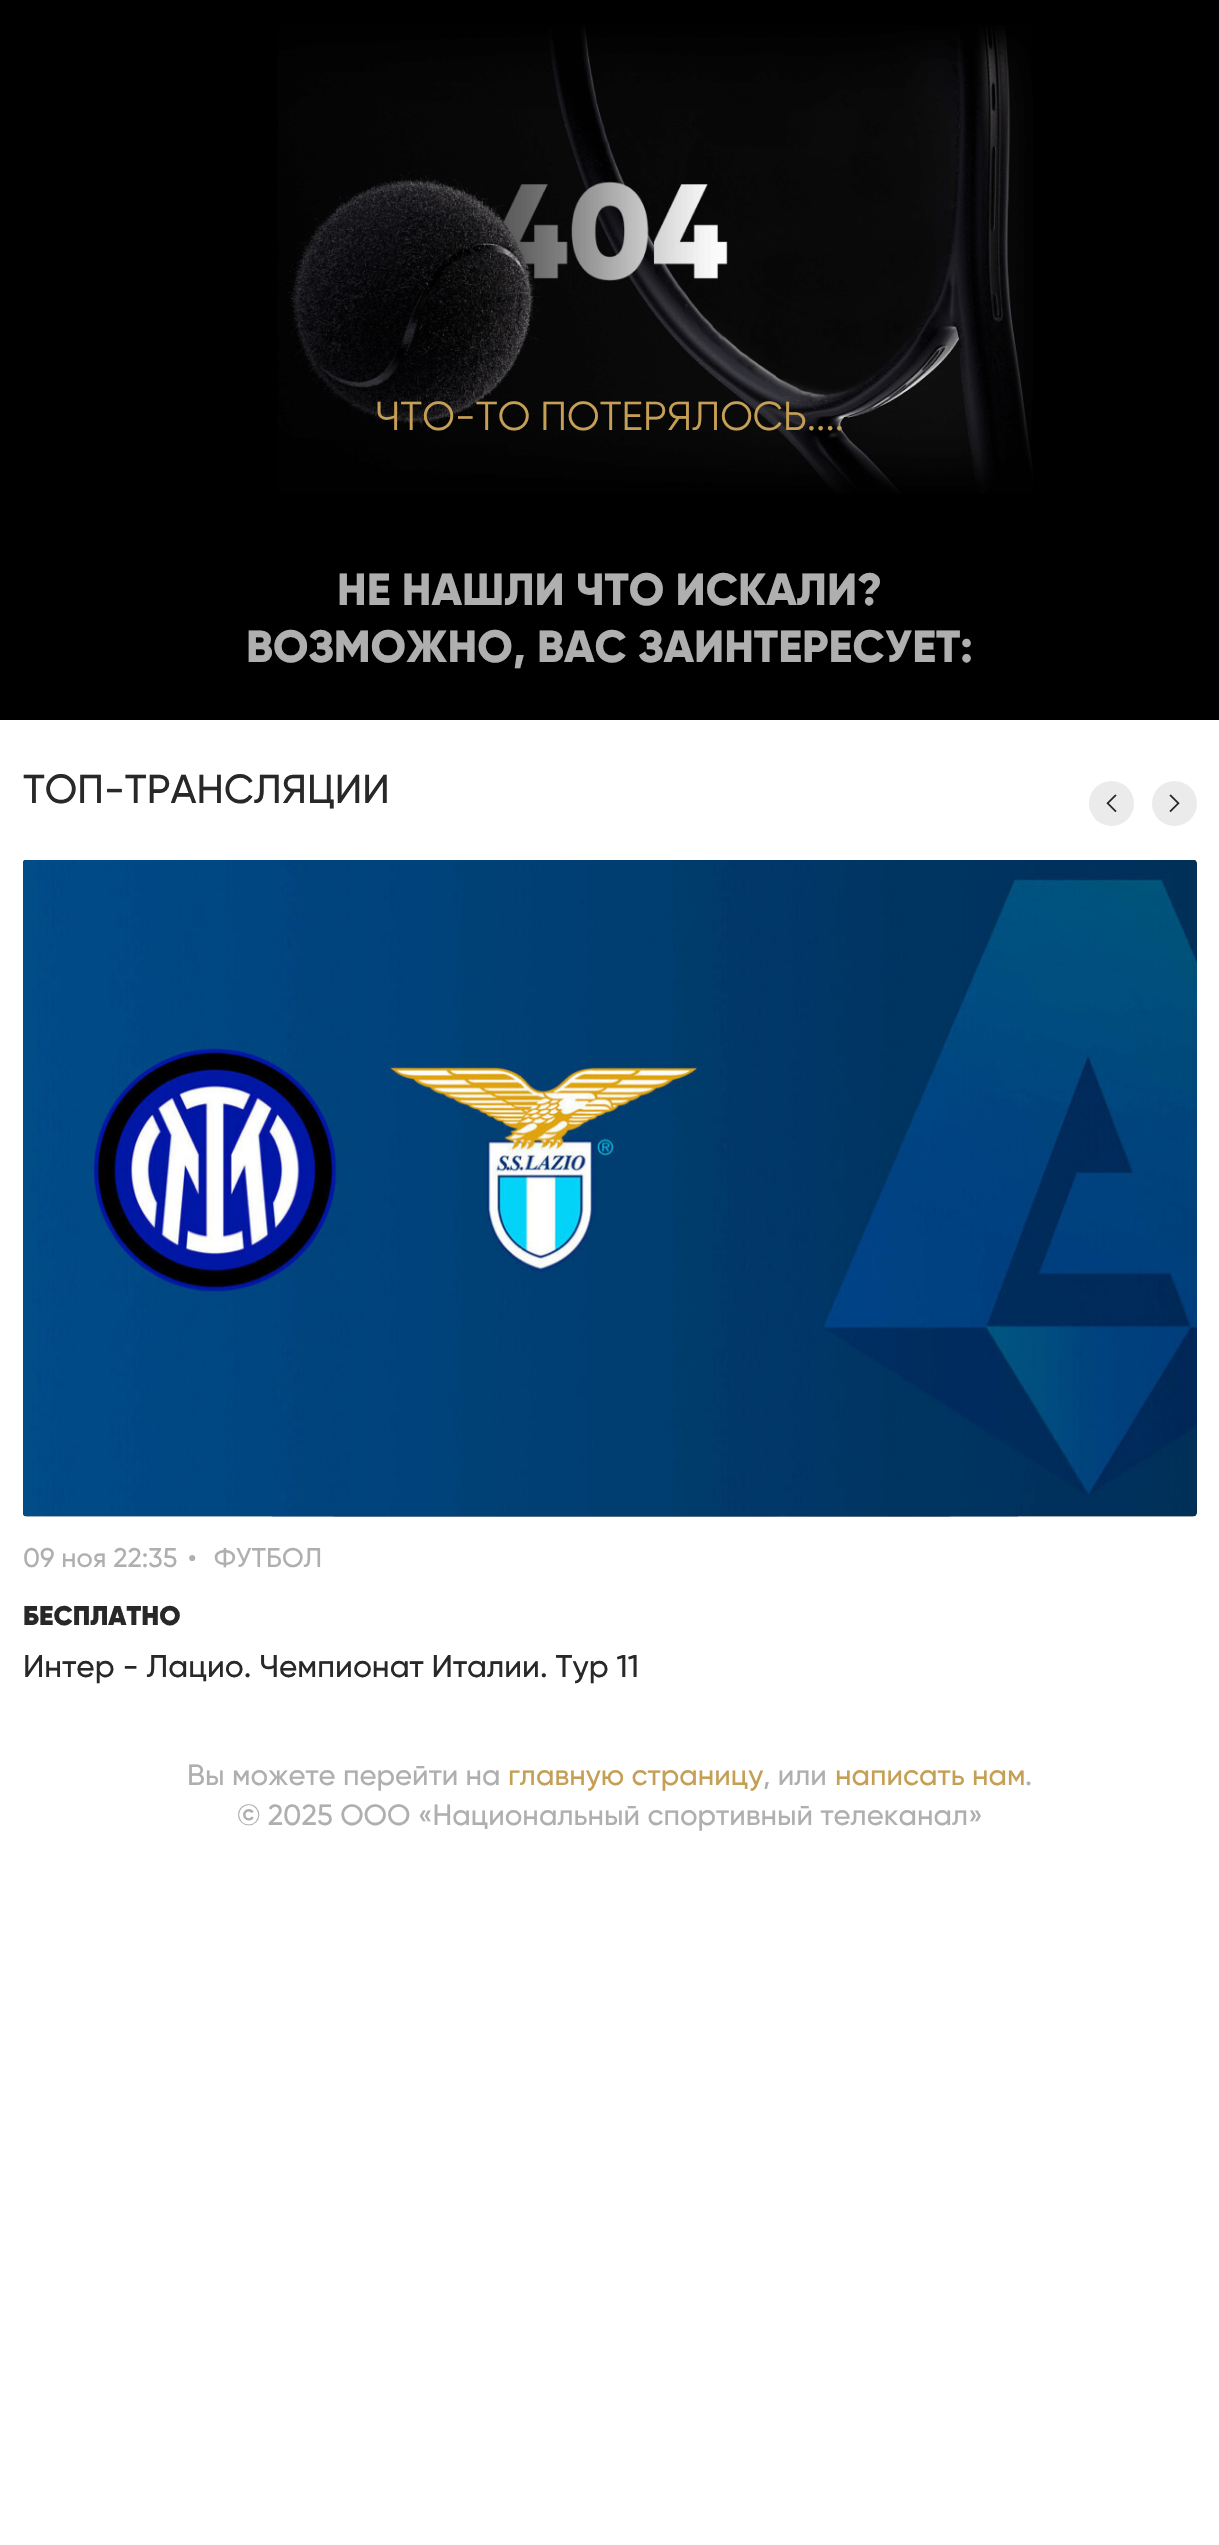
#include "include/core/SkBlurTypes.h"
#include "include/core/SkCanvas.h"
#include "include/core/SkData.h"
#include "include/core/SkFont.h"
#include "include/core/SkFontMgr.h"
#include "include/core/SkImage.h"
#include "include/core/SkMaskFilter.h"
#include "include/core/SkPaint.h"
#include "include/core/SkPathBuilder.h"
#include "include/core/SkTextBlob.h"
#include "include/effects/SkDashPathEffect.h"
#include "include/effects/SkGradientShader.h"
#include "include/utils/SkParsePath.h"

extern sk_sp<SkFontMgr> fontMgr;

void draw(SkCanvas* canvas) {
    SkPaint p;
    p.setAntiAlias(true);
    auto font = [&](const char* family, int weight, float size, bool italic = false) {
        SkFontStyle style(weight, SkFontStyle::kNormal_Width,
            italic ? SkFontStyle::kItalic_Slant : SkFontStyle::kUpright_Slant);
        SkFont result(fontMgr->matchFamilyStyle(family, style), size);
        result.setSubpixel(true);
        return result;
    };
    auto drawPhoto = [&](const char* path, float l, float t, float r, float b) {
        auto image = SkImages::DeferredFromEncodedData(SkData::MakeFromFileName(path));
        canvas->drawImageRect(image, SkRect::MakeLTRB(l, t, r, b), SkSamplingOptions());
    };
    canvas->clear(0xFFFFFFFF);
    p.setColor(0xFF000000);
    canvas->drawRect(SkRect::MakeLTRB(0, 0, 1219, 720), p);
    drawPhoto("media/1.png", 278, 25, 1033, 494);
    auto font1 = font("Gilroy", 400, 40.5f);
    p.setColor(0xFFC59F56);
    canvas->drawString("ЧТО-ТО ПОТЕРЯЛОСЬ....", 375, 430, font1, p);
    auto font2 = font("Gilroy", 800, 45);
    p.setColor(0xFFAFAFAF);
    canvas->drawString("НЕ НАШЛИ ЧТО ИСКАЛИ?", 337, 605, font2, p);
    canvas->drawString("ВОЗМОЖНО, ВАС ЗАИНТЕРЕСУЕТ:", 246, 662, font2, p);
    auto font3 = font("Gilroy", 500, 40.5f);
    p.setColor(0xFF282828);
    canvas->drawString("ТОП-ТРАНСЛЯЦИИ", 23, 803, font3, p);
    p.setColor(0xFFEBEBEB);
    canvas->drawCircle(1111.5f, 803.5f, 22.5f, p);
    drawPhoto("media/2.png", 1106, 794, 1117, 812);
    canvas->drawCircle(1174.5f, 803.5f, 22.5f, p);
    drawPhoto("media/3.png", 1169, 794, 1180, 812);
    drawPhoto("media/4.png", 23, 860, 1197, 1517);
    drawPhoto("media/5.png", 23, 860, 1197, 1517);
    auto font4 = font("Gilroy", 500, 27);
    p.setColor(0xFFAFAFAF);
    canvas->drawString("09 ноя 22:35", 23, 1567, font4, p);
    auto font5 = font("Liberation Sans", 400, 14);
    canvas->drawString("●", 188, 1562, font5, p);
    canvas->drawString("ФУТБОЛ", 214, 1567, font4, p);
    auto font6 = font("Gilroy", 900, 27);
    p.setColor(0xFF282828);
    canvas->drawString("БЕСПЛАТНО", 23, 1625, font6, p);
    auto font7 = font("Gilroy", 500, 31.5f);
    canvas->drawString("Интер - Лацио. Чемпионат Италии. Тур 11", 23, 1677, font7, p);
    auto font8 = font("Gilroy", 500, 29.25f);
    p.setColor(0xFFAFAFAF);
    canvas->drawString("Вы можете перейти на", 187, 1785, font8, p);
    p.setColor(0xFFC59F56);
    canvas->drawString("главную страницу", 508, 1785, font8, p);
    p.setColor(0xFFAFAFAF);
    canvas->drawString(", или", 763, 1785, font8, p);
    p.setColor(0xFFC59F56);
    canvas->drawString("написать нам", 835, 1785, font8, p);
    p.setColor(0xFFAFAFAF);
    canvas->drawString(".", 1025, 1785, font8, p);
    canvas->drawString("© 2025 ООО «Национальный спортивный телеканал»", 237, 1825, font8, p);
}
